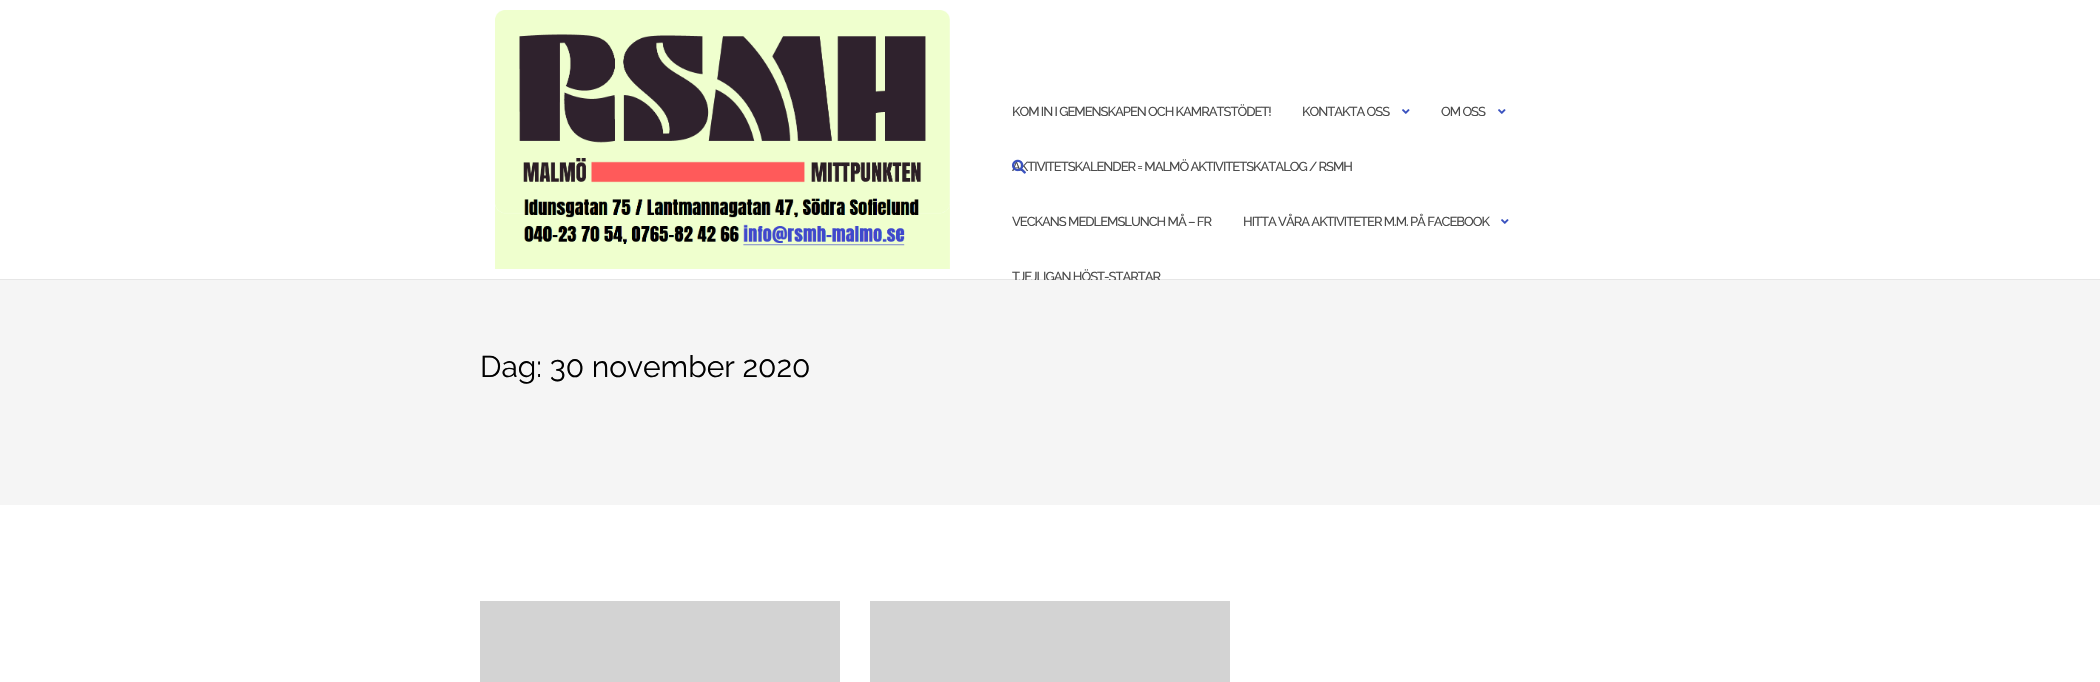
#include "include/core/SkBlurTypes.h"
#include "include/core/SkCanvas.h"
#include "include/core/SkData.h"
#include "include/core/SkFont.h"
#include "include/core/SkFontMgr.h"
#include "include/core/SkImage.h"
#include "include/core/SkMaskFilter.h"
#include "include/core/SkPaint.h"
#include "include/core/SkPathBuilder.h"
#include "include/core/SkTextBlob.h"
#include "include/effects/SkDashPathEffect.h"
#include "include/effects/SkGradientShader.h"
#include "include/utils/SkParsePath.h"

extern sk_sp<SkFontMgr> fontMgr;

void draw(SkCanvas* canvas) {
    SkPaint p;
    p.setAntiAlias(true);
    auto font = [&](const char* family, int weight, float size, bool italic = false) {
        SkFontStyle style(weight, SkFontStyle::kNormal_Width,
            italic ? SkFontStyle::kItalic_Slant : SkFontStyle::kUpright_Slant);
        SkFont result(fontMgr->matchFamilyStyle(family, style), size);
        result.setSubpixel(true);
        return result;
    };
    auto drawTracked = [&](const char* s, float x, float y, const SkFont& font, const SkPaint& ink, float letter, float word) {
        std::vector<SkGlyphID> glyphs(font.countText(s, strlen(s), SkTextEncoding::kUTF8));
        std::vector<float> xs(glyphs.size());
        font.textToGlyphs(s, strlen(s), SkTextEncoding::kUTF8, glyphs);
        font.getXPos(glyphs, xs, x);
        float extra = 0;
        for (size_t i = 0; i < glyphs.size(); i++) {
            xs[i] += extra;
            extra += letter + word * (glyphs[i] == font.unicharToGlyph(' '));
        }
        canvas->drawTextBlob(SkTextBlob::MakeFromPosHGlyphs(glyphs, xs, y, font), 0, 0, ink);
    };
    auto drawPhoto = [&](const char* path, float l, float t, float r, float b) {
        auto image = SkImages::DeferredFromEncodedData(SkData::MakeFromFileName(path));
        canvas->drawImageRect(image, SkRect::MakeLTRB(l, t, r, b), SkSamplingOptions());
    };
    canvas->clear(0xFFFFFFFF);
    p.setColor(0xFFE6E6E6);
    canvas->drawRect(SkRect::MakeLTRB(0, 279, 2100, 280), p);
    drawPhoto("media/1.png", 495, 10, 950, 269);
    auto font1 = font("Raleway", 500, 13);
    p.setColor(0xFF4C4C4C);
    drawTracked("KOM IN I GEMENSKAPEN OCH KAMRATSTÖDET!", 1012, 116, font1, p, -1, 0);
    drawTracked("KONTAKTA OSS", 1302, 116, font1, p, -1, 0);
    drawPhoto("media/2.png", 1402, 109, 1410, 114);
    drawTracked("OM OSS", 1441, 116, font1, p, -1, 0);
    drawPhoto("media/2.png", 1498, 109, 1506, 114);
    {
        const struct { const char* s; float x, y; } items[] = {
            {"AKTIVITETSKALENDER = MALMÖ AKTIVITETSKATALOG / RSMH", 1012, 171},
            {"VECKANS MEDLEMSLUNCH MÅ – FR", 1012, 226},
            {"HITTA VÅRA AKTIVITETER M.M. PÅ FACEBOOK", 1243, 226},
        };
        for (auto [s, x, y] : items) {
            drawTracked(s, x, y, font1, p, -1, 0);
        }
    }
    drawPhoto("media/2.png", 1501, 219, 1509, 224);
    drawTracked("TJEJLIGAN HÖST-STARTAR", 1012, 281, font1, p, -1, 0);
    drawPhoto("media/3.png", 1012, 159, 1026, 174);
    p.setColor(0xFFF5F5F5);
    canvas->drawRect(SkRect::MakeLTRB(0, 280, 2100, 505), p);
    auto font2 = font("Raleway", 400, 30);
    p.setColor(0xFF000000);
    canvas->drawString("Dag: 30 november 2020", 480, 377, font2, p);
    p.setColor(0xFFD3D3D3);
    canvas->drawRect(SkRect::MakeLTRB(480, 601, 840, 682), p);
    canvas->drawRect(SkRect::MakeLTRB(870, 601, 1230, 682), p);
}
